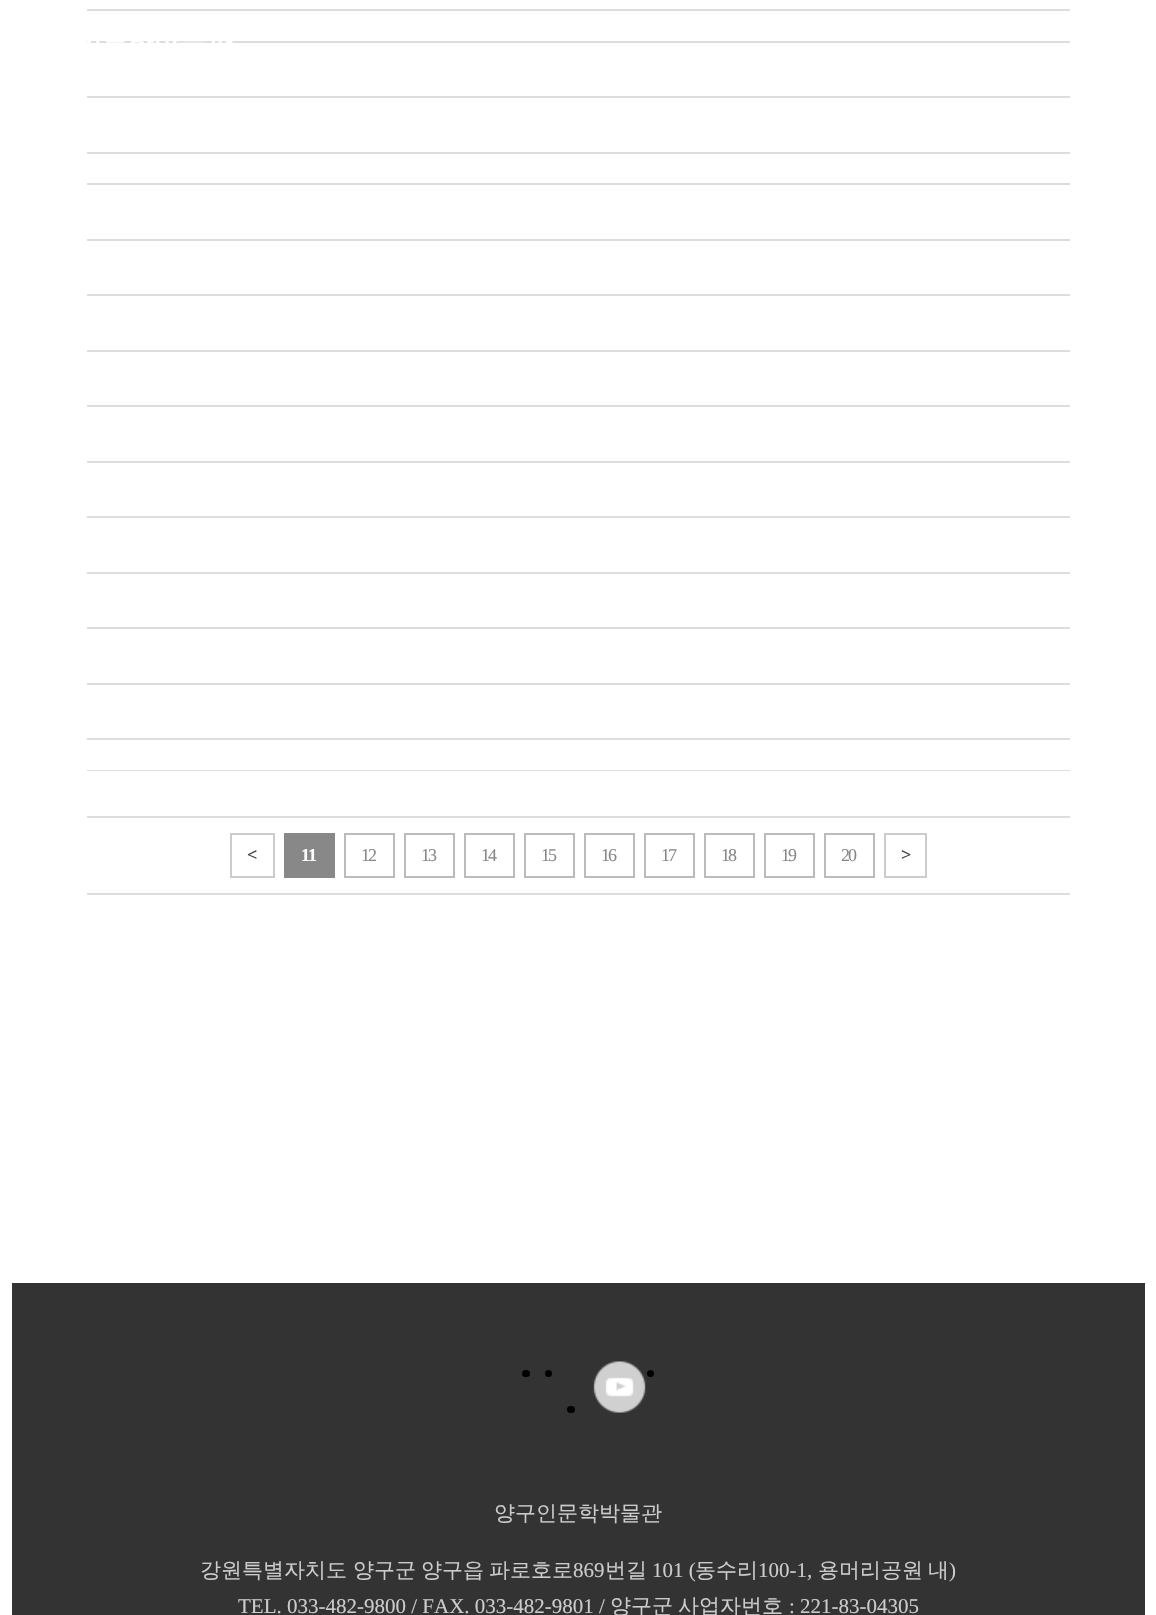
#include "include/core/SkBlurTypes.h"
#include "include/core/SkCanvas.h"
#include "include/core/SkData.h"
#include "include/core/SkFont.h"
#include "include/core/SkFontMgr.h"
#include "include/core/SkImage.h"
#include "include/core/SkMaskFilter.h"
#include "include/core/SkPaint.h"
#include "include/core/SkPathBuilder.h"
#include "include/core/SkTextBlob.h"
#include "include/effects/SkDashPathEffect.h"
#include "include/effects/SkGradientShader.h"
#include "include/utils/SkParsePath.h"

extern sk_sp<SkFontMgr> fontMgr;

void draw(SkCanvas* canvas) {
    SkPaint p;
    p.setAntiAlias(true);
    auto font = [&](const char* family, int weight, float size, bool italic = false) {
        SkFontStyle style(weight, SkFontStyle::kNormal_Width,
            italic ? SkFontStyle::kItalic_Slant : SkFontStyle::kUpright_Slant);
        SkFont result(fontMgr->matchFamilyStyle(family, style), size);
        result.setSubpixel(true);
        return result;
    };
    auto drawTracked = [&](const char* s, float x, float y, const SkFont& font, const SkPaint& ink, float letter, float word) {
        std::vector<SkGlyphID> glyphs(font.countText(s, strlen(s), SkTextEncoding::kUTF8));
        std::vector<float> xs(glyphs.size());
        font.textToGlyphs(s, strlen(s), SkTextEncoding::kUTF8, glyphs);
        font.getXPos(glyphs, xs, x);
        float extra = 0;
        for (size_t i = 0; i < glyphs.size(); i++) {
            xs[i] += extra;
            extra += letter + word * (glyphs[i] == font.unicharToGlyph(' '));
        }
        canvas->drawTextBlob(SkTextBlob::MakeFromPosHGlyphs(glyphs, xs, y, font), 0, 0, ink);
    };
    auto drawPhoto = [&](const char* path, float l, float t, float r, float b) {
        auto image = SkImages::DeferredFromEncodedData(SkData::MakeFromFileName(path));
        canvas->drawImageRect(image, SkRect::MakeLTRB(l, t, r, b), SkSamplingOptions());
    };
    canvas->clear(0xFFFFFFFF);
    p.setColor(0xFFDDDDDD);
    canvas->drawRect(SkRect::MakeLTRB(87, 41, 1070, 43), p);
    drawPhoto("media/1.png", 87, 41, 233, 43);
    {
        const struct { float l, t, r, b; SkColor color; } items[] = {
            {87, 9, 1070, 11, 0xFFDDDDDD},
            {87, 96, 1070, 98, 0xFFDDDDDD},
            {87, 152, 1070, 154, 0xFFDDDDDD},
            {87, 183, 1070, 185, 0xFFDDDDDD},
            {87, 239, 1070, 241, 0xFFDDDDDD},
            {87, 294, 1070, 296, 0xFFDDDDDD},
            {87, 350, 1070, 352, 0xFFDDDDDD},
            {87, 405, 1070, 407, 0xFFDDDDDD},
            {87, 461, 1070, 463, 0xFFDDDDDD},
            {87, 516, 1070, 518, 0xFFDDDDDD},
            {87, 572, 1070, 574, 0xFFDDDDDD},
            {87, 627, 1070, 629, 0xFFDDDDDD},
            {87, 683, 1070, 685, 0xFFDDDDDD},
            {87, 738, 1070, 740, 0xFFDDDDDD},
            {87, 770, 1070, 771, 0xFFDDDDDD},
            {87, 816, 1070, 818, 0xFFDDDDDD},
            {87, 893, 1070, 895, 0xFFDDDDDD},
        };
        for (auto [l, t, r, b, color] : items) {
            p.setColor(color);
            canvas->drawRect(SkRect::MakeLTRB(l, t, r, b), p);
        }
    }
    p.setStyle(SkPaint::kStroke_Style);
    p.setStrokeWidth(2);
    p.setColor(0xFFCCCCCC);
    canvas->drawRect(SkRect::MakeLTRB(231, 834, 274, 877), p);
    auto font1 = font("Open Sans", 400, 18);
    p.setStyle(SkPaint::kFill_Style);
    p.setColor(0xFF444444);
    drawTracked("<", 247, 861, font1, p, -2, 0);
    p.setColor(0xFF888888);
    canvas->drawRect(SkRect::MakeLTRB(284, 833, 335, 878), p);
    auto font2 = font("Liberation Serif", 700, 18);
    p.setColor(0xFFFFFFFF);
    drawTracked("11", 301, 861, font2, p, -2, 0);
    p.setStyle(SkPaint::kStroke_Style);
    p.setColor(0xFFBBBBBB);
    canvas->drawRect(SkRect::MakeLTRB(345, 834, 394, 877), p);
    auto font3 = font("Liberation Serif", 400, 18);
    p.setStyle(SkPaint::kFill_Style);
    p.setColor(0xFF888888);
    drawTracked("12", 361, 861, font3, p, -2, 0);
    p.setStyle(SkPaint::kStroke_Style);
    p.setColor(0xFFBBBBBB);
    canvas->drawRect(SkRect::MakeLTRB(405, 834, 454, 877), p);
    p.setStyle(SkPaint::kFill_Style);
    p.setColor(0xFF888888);
    drawTracked("13", 421, 861, font3, p, -2, 0);
    p.setStyle(SkPaint::kStroke_Style);
    p.setColor(0xFFBBBBBB);
    canvas->drawRect(SkRect::MakeLTRB(465, 834, 514, 877), p);
    p.setStyle(SkPaint::kFill_Style);
    p.setColor(0xFF888888);
    drawTracked("14", 481, 861, font3, p, -2, 0);
    p.setStyle(SkPaint::kStroke_Style);
    p.setColor(0xFFBBBBBB);
    canvas->drawRect(SkRect::MakeLTRB(525, 834, 574, 877), p);
    p.setStyle(SkPaint::kFill_Style);
    p.setColor(0xFF888888);
    drawTracked("15", 541, 861, font3, p, -2, 0);
    p.setStyle(SkPaint::kStroke_Style);
    p.setColor(0xFFBBBBBB);
    canvas->drawRect(SkRect::MakeLTRB(585, 834, 634, 877), p);
    p.setStyle(SkPaint::kFill_Style);
    p.setColor(0xFF888888);
    drawTracked("16", 601, 861, font3, p, -2, 0);
    p.setStyle(SkPaint::kStroke_Style);
    p.setColor(0xFFBBBBBB);
    canvas->drawRect(SkRect::MakeLTRB(645, 834, 694, 877), p);
    p.setStyle(SkPaint::kFill_Style);
    p.setColor(0xFF888888);
    drawTracked("17", 661, 861, font3, p, -2, 0);
    p.setStyle(SkPaint::kStroke_Style);
    p.setColor(0xFFBBBBBB);
    canvas->drawRect(SkRect::MakeLTRB(705, 834, 754, 877), p);
    p.setStyle(SkPaint::kFill_Style);
    p.setColor(0xFF888888);
    drawTracked("18", 721, 861, font3, p, -2, 0);
    p.setStyle(SkPaint::kStroke_Style);
    p.setColor(0xFFBBBBBB);
    canvas->drawRect(SkRect::MakeLTRB(765, 834, 814, 877), p);
    p.setStyle(SkPaint::kFill_Style);
    p.setColor(0xFF888888);
    drawTracked("19", 781, 861, font3, p, -2, 0);
    p.setStyle(SkPaint::kStroke_Style);
    p.setColor(0xFFBBBBBB);
    canvas->drawRect(SkRect::MakeLTRB(825, 834, 874, 877), p);
    p.setStyle(SkPaint::kFill_Style);
    p.setColor(0xFF888888);
    drawTracked("20", 841, 861, font3, p, -2, 0);
    p.setStyle(SkPaint::kStroke_Style);
    p.setColor(0xFFCCCCCC);
    canvas->drawRect(SkRect::MakeLTRB(885, 834, 926, 877), p);
    p.setStyle(SkPaint::kFill_Style);
    p.setColor(0xFF444444);
    drawTracked(">", 901, 861, font1, p, -2, 0);
    p.setColor(0xFF333333);
    canvas->drawRect(SkRect::MakeLTRB(12, 1283, 1145, 1615), p);
    p.setColor(0xFF000000);
    canvas->drawRoundRect(SkRect::MakeLTRB(522, 1370, 530, 1377), 3.5f, 3.5f, p);
    canvas->drawCircle(548.5f, 1373.5f, 3.5f, p);
    canvas->drawRoundRect(SkRect::MakeLTRB(567, 1406, 575, 1413), 3.5f, 3.5f, p);
    drawPhoto("media/2.png", 593, 1361, 646, 1413);
    canvas->drawCircle(650.5f, 1373.5f, 3.5f, p);
    auto font4 = font("WenQuanYi Zen Hei", 500, 21);
    p.setColor(0xFFCCCCCC);
    {
        const struct { const char* s; float x, y; } items[] = {
            {"양구인문학박물관", 494, 1520},
            {"강원특별자치도", 200, 1577},
            {"양구군", 353, 1577},
            {"양구읍", 421, 1577},
            {"파로호로", 489, 1577},
        };
        for (auto [s, x, y] : items) {
            canvas->drawString(s, x, y, font4, p);
        }
    }
    auto font5 = font("Liberation Serif", 400, 21);
    canvas->drawString("869", 573, 1577, font5, p);
    canvas->drawString("번길", 605, 1577, font4, p);
    canvas->drawString("101 (", 652, 1577, font5, p);
    canvas->drawString("동수리", 695, 1577, font4, p);
    canvas->drawString("100-1,", 758, 1577, font5, p);
    canvas->drawString("용머리공원", 818, 1577, font4, p);
    canvas->drawString("내", 928, 1577, font4, p);
    canvas->drawString(")", 949, 1577, font5, p);
    canvas->drawString("TEL. 033-482-9800 / FAX. 033-482-9801 /", 238, 1613, font5, p);
    canvas->drawString("양구군", 610, 1613, font4, p);
    canvas->drawString("사업자번호", 678, 1613, font4, p);
    canvas->drawString(": 221-83-04305", 789, 1613, font5, p);
}
